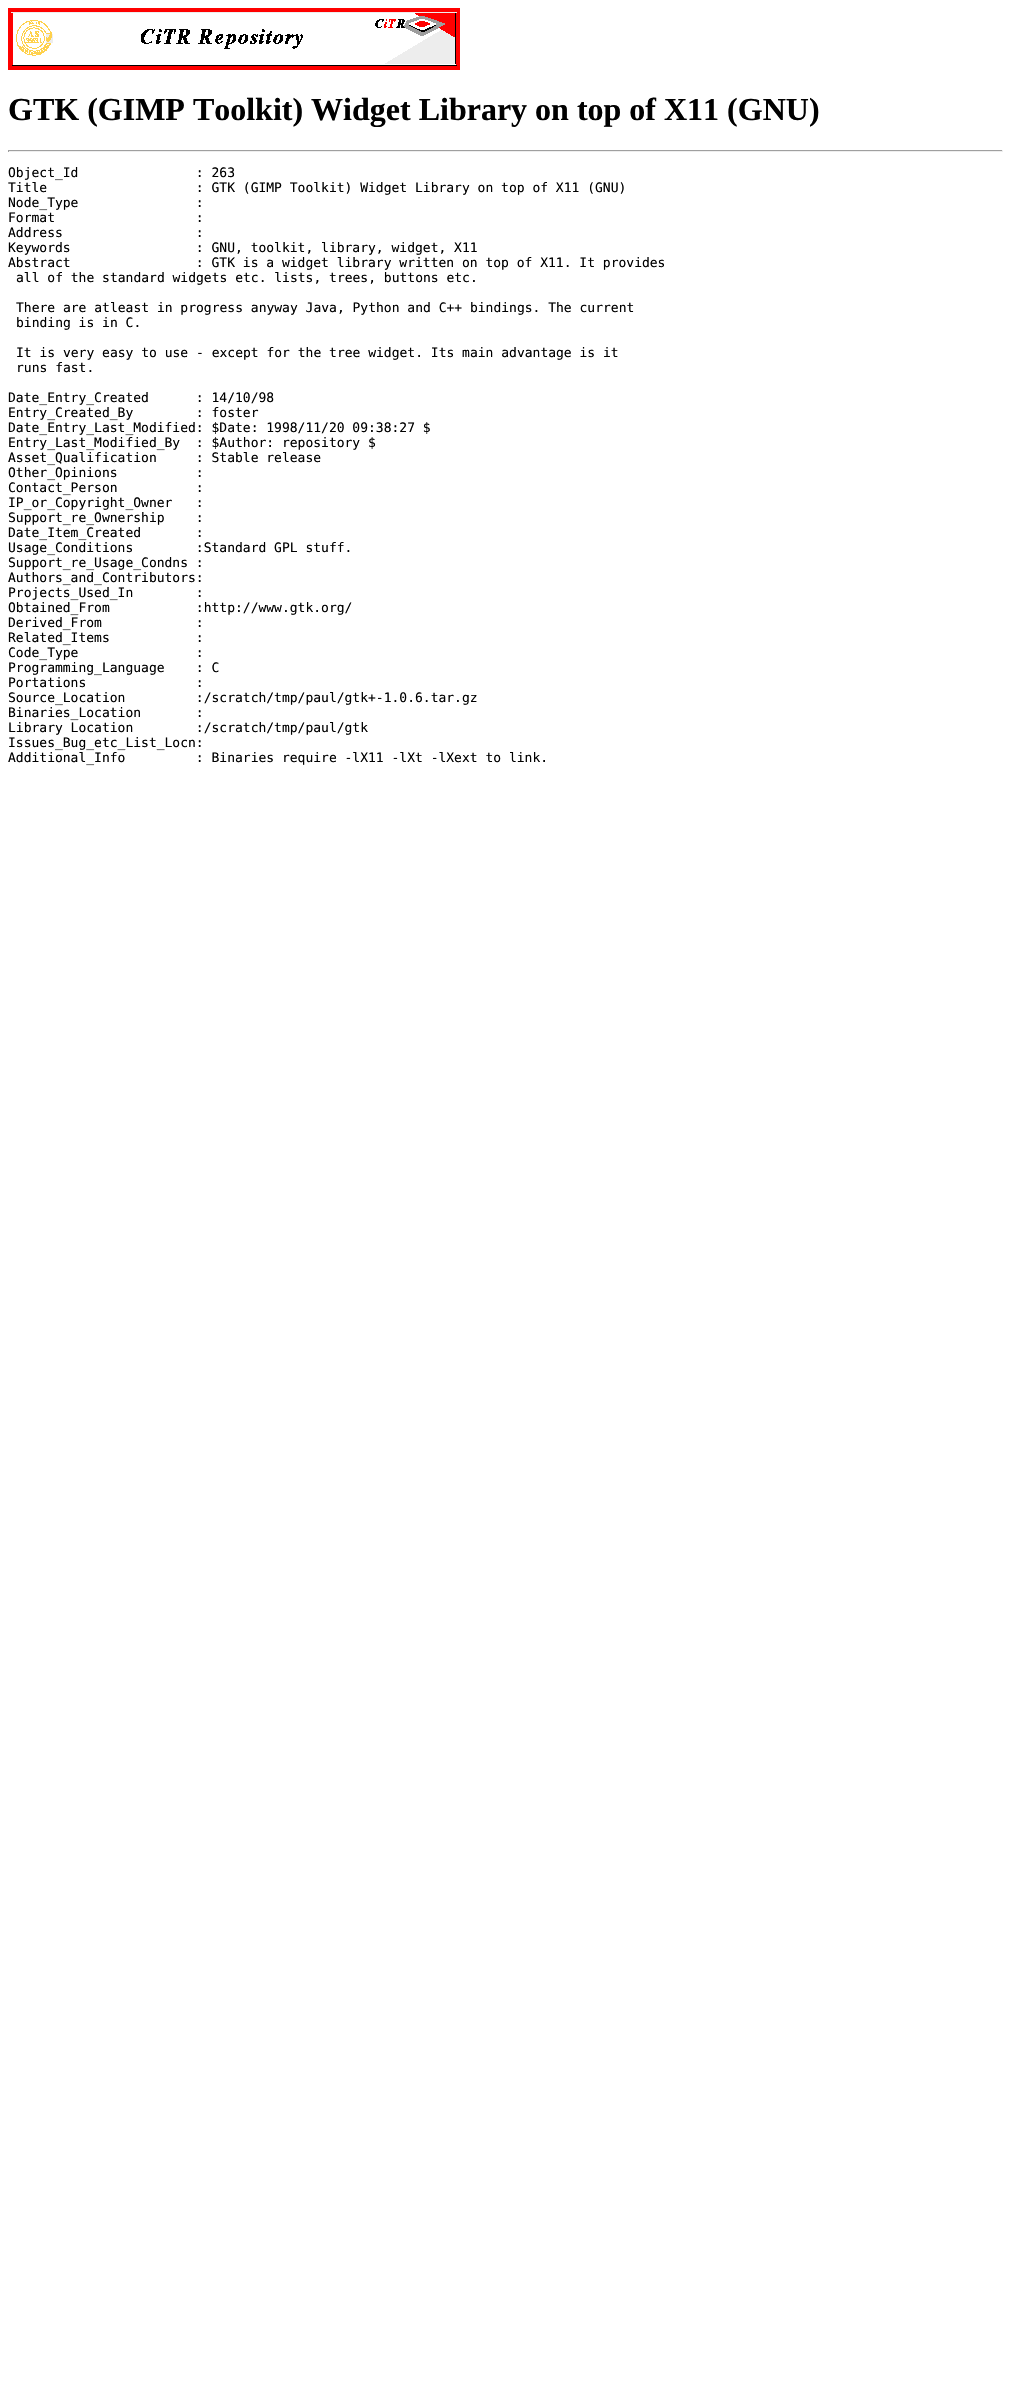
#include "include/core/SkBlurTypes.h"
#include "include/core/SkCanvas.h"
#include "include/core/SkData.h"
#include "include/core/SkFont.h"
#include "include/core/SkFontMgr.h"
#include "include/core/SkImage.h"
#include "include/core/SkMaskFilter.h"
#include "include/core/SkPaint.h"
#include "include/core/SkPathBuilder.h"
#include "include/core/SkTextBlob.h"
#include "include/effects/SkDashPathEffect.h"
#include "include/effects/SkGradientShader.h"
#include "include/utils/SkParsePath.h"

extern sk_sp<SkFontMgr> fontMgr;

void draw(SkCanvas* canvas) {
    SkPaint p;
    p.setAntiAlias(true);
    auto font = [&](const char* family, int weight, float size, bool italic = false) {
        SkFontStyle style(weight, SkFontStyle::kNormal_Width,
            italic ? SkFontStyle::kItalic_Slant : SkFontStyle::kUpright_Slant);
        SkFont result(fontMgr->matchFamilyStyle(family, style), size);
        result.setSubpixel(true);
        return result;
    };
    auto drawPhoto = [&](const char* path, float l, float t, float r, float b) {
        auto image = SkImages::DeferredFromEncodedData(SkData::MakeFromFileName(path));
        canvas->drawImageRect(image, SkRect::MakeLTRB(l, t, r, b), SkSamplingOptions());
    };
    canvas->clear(0xFFFFFFFF);
    drawPhoto("media/1.png", 8, 8, 460, 70);
    auto font1 = font("Liberation Serif", 700, 32);
    p.setColor(0xFF000000);
    canvas->drawString("GTK (GIMP Toolkit) Widget Library on top of X11 (GNU)", 8, 120, font1, p);
    {
        const struct { float l, t, r, b; SkColor color; } items[] = {
            {8, 150, 1003, 151, 0xFF9F9F9F},
            {1002, 150, 1003, 152, 0xFFEEEEEE},
            {8, 151, 1003, 152, 0xFFEEEEEE},
            {8, 150, 9, 152, 0xFF9F9F9F},
        };
        for (auto [l, t, r, b, color] : items) {
            p.setColor(color);
            canvas->drawRect(SkRect::MakeLTRB(l, t, r, b), p);
        }
    }
    auto font2 = font("DejaVu Sans Mono", 400, 13);
    p.setColor(0xFF000000);
    {
        const struct { const char* s; float x, y; } items[] = {
            {"Object_Id               : 263", 8, 177},
            {"Title                   : GTK (GIMP Toolkit) Widget Library on top of X11 (GNU)", 8, 192},
            {"Node_Type               :", 8, 207},
            {"Format                  :", 8, 222},
            {"Address                 :", 8, 237},
            {"Keywords                : GNU, toolkit, library, widget, X11", 8, 252},
            {"Abstract                : GTK is a widget library written on top of X11. It provides", 8, 267},
            {"all of the standard widgets etc. lists, trees, buttons etc.", 16, 282},
            {"There are atleast in progress anyway Java, Python and C++ bindings. The current", 16, 312},
            {"binding is in C.", 16, 327},
            {"It is very easy to use - except for the tree widget. Its main advantage is it", 16, 357},
            {"runs fast.", 16, 372},
            {"Date_Entry_Created      : 14/10/98", 8, 402},
            {"Entry_Created_By        : foster", 8, 417},
            {"Date_Entry_Last_Modified: $Date: 1998/11/20 09:38:27 $", 8, 432},
            {"Entry_Last_Modified_By  : $Author: repository $", 8, 447},
            {"Asset_Qualification     : Stable release", 8, 462},
            {"Other_Opinions          :", 8, 477},
            {"Contact_Person          :", 8, 492},
            {"IP_or_Copyright_Owner   :", 8, 507},
            {"Support_re_Ownership    :", 8, 522},
            {"Date_Item_Created       :", 8, 537},
            {"Usage_Conditions        :Standard GPL stuff.", 8, 552},
            {"Support_re_Usage_Condns :", 8, 567},
            {"Authors_and_Contributors:", 8, 582},
            {"Projects_Used_In        :", 8, 597},
            {"Obtained_From           :http://www.gtk.org/", 8, 612},
            {"Derived_From            :", 8, 627},
            {"Related_Items           :", 8, 642},
            {"Code_Type               :", 8, 657},
            {"Programming_Language    : C", 8, 672},
            {"Portations              :", 8, 687},
            {"Source_Location         :/scratch/tmp/paul/gtk+-1.0.6.tar.gz", 8, 702},
            {"Binaries_Location       :", 8, 717},
            {"Library Location        :/scratch/tmp/paul/gtk", 8, 732},
            {"Issues_Bug_etc_List_Locn:", 8, 747},
            {"Additional_Info         : Binaries require -lX11 -lXt -lXext to link.", 8, 762},
        };
        for (auto [s, x, y] : items) {
            canvas->drawString(s, x, y, font2, p);
        }
    }
}
